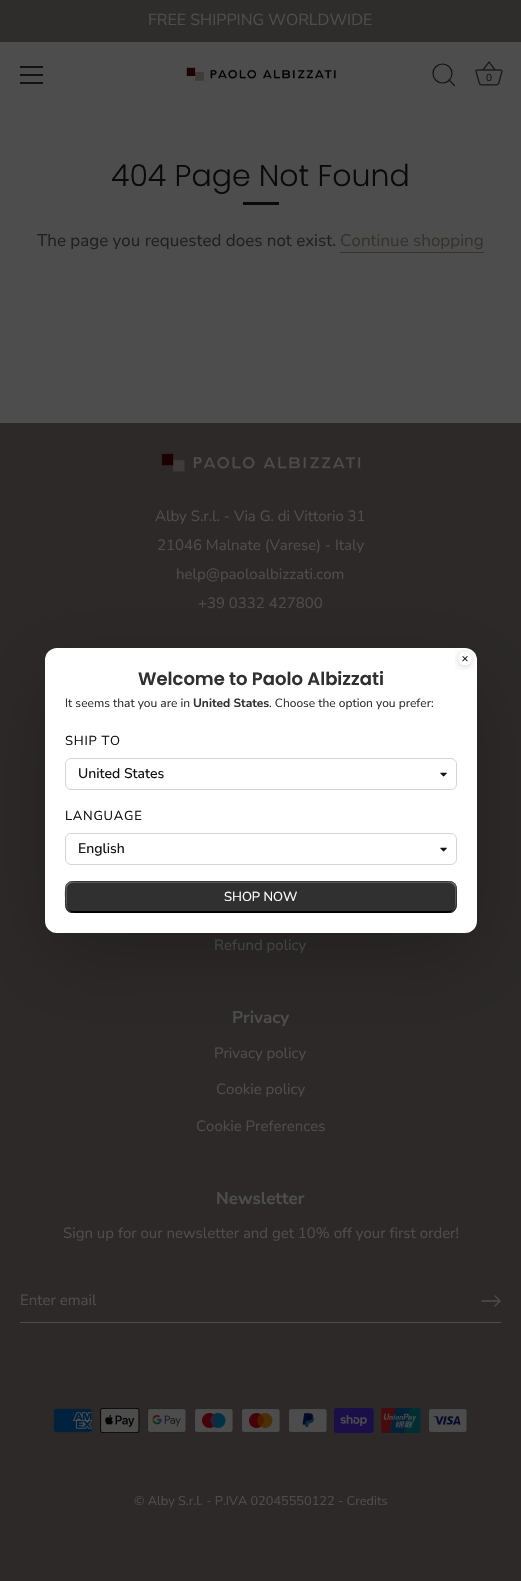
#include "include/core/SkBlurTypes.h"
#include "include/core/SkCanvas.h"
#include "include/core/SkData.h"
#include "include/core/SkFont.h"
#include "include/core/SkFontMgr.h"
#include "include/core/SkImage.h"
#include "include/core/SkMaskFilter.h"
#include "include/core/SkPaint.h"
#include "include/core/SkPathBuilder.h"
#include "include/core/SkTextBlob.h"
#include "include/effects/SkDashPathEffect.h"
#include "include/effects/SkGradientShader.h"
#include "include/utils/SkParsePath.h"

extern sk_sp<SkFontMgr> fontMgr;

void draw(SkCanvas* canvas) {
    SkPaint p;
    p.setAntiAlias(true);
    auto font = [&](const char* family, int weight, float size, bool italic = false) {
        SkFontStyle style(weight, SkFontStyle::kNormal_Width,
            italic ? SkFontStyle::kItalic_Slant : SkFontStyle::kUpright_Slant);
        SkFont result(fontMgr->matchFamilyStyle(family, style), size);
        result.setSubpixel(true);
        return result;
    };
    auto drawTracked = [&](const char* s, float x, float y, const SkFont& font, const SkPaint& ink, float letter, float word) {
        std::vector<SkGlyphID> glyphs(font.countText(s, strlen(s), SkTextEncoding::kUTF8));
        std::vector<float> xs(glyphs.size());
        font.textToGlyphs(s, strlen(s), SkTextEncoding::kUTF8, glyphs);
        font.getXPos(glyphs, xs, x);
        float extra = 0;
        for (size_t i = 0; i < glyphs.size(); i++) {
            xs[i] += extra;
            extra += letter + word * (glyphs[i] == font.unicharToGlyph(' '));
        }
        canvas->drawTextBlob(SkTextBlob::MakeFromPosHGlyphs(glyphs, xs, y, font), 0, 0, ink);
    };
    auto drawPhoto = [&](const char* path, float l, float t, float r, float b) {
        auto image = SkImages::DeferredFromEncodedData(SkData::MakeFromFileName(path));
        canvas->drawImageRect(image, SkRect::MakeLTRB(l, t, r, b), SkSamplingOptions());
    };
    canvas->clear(0xFF4D4D4D);
    p.setColor(0xFF2F2D2B);
    canvas->drawRect(SkRect::MakeLTRB(0, 0, 521, 42), p);
    auto font1 = font("Nunito Sans", 400, 16);
    p.setColor(0xFF4D4D4D);
    canvas->drawString("FREE SHIPPING WORLDWIDE", 148, 25, font1, p);
    {
        const struct { float l, t, r, b; SkColor color; } items[] = {
            {20, 66, 43, 68, 0xFF141313},
            {20, 74, 43, 76, 0xFF141313},
            {20, 82, 43, 84, 0xFF141313},
        };
        for (auto [l, t, r, b, color] : items) {
            p.setColor(color);
            canvas->drawRect(SkRect::MakeLTRB(l, t, r, b), p);
        }
    }
    drawPhoto("media/1.png", 186, 67, 336, 81);
    p.setStyle(SkPaint::kStroke_Style);
    p.setStrokeWidth(1.2f);
    canvas->drawCircle(442.5f, 73.5f, 9.5f, p);
    p.setStrokeCap(SkPaint::kRound_Cap);
    p.setStrokeJoin(SkPaint::kRound_Join);
    canvas->drawPath(SkPathBuilder().moveTo(454.5f, 85.5f).lineTo(449, 80).detach(), p);
    drawPhoto("media/2.png", 475, 61, 503, 86);
    auto font2 = font("Nunito Sans", 400, 10);
    p.setStyle(SkPaint::kFill_Style);
    canvas->drawString("0", 486, 81, font2, p);
    auto font3 = font("Poppins", 300, 30);
    p.setColor(0xFF0A0A0A);
    canvas->drawString("404 Page Not Found", 111, 186, font3, p);
    canvas->drawRect(SkRect::MakeLTRB(243, 202, 279, 205), p);
    auto font4 = font("Nunito Sans", 400, 17);
    p.setColor(0xFF202020);
    canvas->drawString("The page you requested does not exist.", 37, 246, font4, p);
    p.setColor(0xFF36322D);
    canvas->drawString("Continue shopping", 340, 246, font4, p);
    canvas->drawRect(SkRect::MakeLTRB(340, 252, 484, 253), p);
    p.setColor(0xFF2C2928);
    canvas->drawRect(SkRect::MakeLTRB(0, 423, 521, 1581), p);
    drawPhoto("media/3.png", 161, 453, 361, 472);
    auto font5 = font("Nunito Sans", 400, 15);
    p.setColor(0xFF4D4D4D);
    {
        const struct { const char* s; float x, y; } items[] = {
            {"Alby S.r.l. - Via G. di Vittorio 31", 155, 521},
            {"21046 Malnate (Varese) - Italy", 157, 550},
            {"help@paoloalbizzati.com", 176, 579},
            {"+39 0332 427800", 198, 608},
            {"Refund policy", 214, 950},
        };
        for (auto [s, x, y] : items) {
            canvas->drawString(s, x, y, font5, p);
        }
    }
    auto font6 = font("Nunito Sans", 700, 17);
    canvas->drawString("Privacy", 232, 1023, font6, p);
    {
        const struct { const char* s; float x, y; } items[] = {
            {"Privacy policy", 214, 1058},
            {"Cookie policy", 216, 1094},
            {"Cookie Preferences", 196, 1131},
        };
        for (auto [s, x, y] : items) {
            canvas->drawString(s, x, y, font5, p);
        }
    }
    canvas->drawString("Newsletter", 216, 1204, font6, p);
    canvas->drawString("Sign up for our newsletter and get 10% off your first order!", 63, 1238, font5, p);
    canvas->drawRect(SkRect::MakeLTRB(20, 1322, 501, 1323), p);
    canvas->drawString("Enter email", 20, 1305, font5, p);
    p.setStyle(SkPaint::kStroke_Style);
    p.setStrokeWidth(1.3f);
    p.setStrokeJoin(SkPaint::kMiter_Join);
    canvas->drawPath(SkPathBuilder().moveTo(495, 1306).lineTo(500, 1301).lineTo(495, 1296).detach(), p);
    p.setStrokeJoin(SkPaint::kRound_Join);
    canvas->drawPath(SkPathBuilder().moveTo(499, 1301).lineTo(482, 1301).detach(), p);
    drawPhoto("media/4.png", 53, 1408, 93, 1433);
    drawPhoto("media/5.png", 100, 1408, 140, 1433);
    drawPhoto("media/6.png", 147, 1408, 187, 1433);
    drawPhoto("media/7.png", 195, 1409, 233, 1432);
    drawPhoto("media/8.png", 242, 1409, 280, 1432);
    drawPhoto("media/9.png", 289, 1409, 327, 1432);
    drawPhoto("media/10.png", 334, 1408, 374, 1433);
    drawPhoto("media/11.png", 381, 1408, 421, 1433);
    drawPhoto("media/12.png", 429, 1409, 467, 1432);
    auto font7 = font("Nunito Sans", 400, 12.75f);
    p.setStyle(SkPaint::kFill_Style);
    canvas->drawString("© Alby S.r.l. - P.IVA 02045550122 - Credits", 134, 1505, font7, p);
    p.setColor(0x33000000);
    p.setMaskFilter(SkMaskFilter::MakeBlur(kNormal_SkBlurStyle, 40));
    canvas->drawRoundRect(SkRect::MakeLTRB(45, 674, 477, 959), 12, 12, p);
    p.setMaskFilter(nullptr);
    p.setColor(0xFFFFFFFF);
    canvas->drawRoundRect(SkRect::MakeLTRB(45, 648, 477, 933), 12, 12, p);
    drawPhoto("media/13.png", 455, 650, 475, 670);
    auto font8 = font("Poppins", 600, 18);
    p.setColor(0xFF303030);
    canvas->drawString("Welcome to Paolo Albizzati", 138, 685, font8, p);
    auto font9 = font("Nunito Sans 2", 400, 12);
    canvas->drawString("It seems that you are in", 65, 707, font9, p);
    auto font10 = font("Nunito Sans", 700, 12);
    canvas->drawString("United States", 193, 707, font10, p);
    canvas->drawString(". Choose the option you prefer:", 269, 707, font9, p);
    auto font11 = font("Nunito Sans", 400, 13);
    p.setColor(0xFF141313);
    drawTracked("SHIP TO", 65, 745, font11, p, 0.75f, 0);
    p.setStyle(SkPaint::kStroke_Style);
    p.setStrokeWidth(1);
    p.setStrokeCap(SkPaint::kButt_Cap);
    p.setStrokeJoin(SkPaint::kMiter_Join);
    p.setColor(0xFFD2D5D8);
    canvas->drawRoundRect(SkRect::MakeLTRB(65.5f, 758.5f, 456.5f, 789.5f), 5.5f, 5.5f, p);
    auto font12 = font("Nunito Sans", 500, 14);
    p.setStyle(SkPaint::kFill_Style);
    p.setColor(0xFF141313);
    canvas->drawString("United States", 78, 778, font12, p);
    drawPhoto("media/14.png", 440, 772, 447, 777);
    drawTracked("LANGUAGE", 65, 820, font11, p, 0.75f, 0);
    p.setStyle(SkPaint::kStroke_Style);
    p.setColor(0xFFD2D5D8);
    canvas->drawRoundRect(SkRect::MakeLTRB(65.5f, 833.5f, 456.5f, 864.5f), 5.5f, 5.5f, p);
    p.setStyle(SkPaint::kFill_Style);
    p.setColor(0xFF141313);
    canvas->drawString("English", 78, 853, font12, p);
    drawPhoto("media/14.png", 440, 847, 447, 852);
    p.setColor(0xFF303030);
    canvas->drawRoundRect(SkRect::MakeLTRB(65, 881, 457, 913), 8, 8, p);
    p.setColor(0xFF000000);
    canvas->drawPath(SkPathBuilder().moveTo(73, 882).lineTo(449, 882).cubicTo(453, 882, 457, 886, 457, 890).lineTo(457, 889).cubicTo(457, 885, 453, 881, 449, 881).lineTo(73, 881).cubicTo(69, 881, 65, 885, 65, 889).lineTo(65, 890).cubicTo(65, 886, 69, 882, 73, 882).close().detach(), p);
    canvas->drawPath(SkPathBuilder().moveTo(73, 881).cubicTo(64, 881, 65, 891, 65, 897).cubicTo(65, 903, 64, 913, 73, 913).lineTo(449, 913).cubicTo(458, 913, 457, 903, 457, 897).cubicTo(457, 891, 458, 881, 449, 881).cubicTo(457, 881, 456, 890, 456, 896).cubicTo(456, 902, 457, 911, 449, 911).lineTo(73, 911).cubicTo(65, 911, 66, 902, 66, 896).cubicTo(66, 890, 65, 881, 73, 881).close().detach(), p);
    p.setColor(0x33FFFFFF);
    canvas->drawPath(SkPathBuilder().moveTo(447, 913).cubicTo(458, 913, 457, 906, 457, 897).cubicTo(457, 888, 458, 881, 447, 881).cubicTo(451, 881, 455, 885, 455, 889).lineTo(455, 905).cubicTo(455, 909, 451, 913, 447, 913).close().detach(), p);
    canvas->drawPath(SkPathBuilder().moveTo(73, 881).cubicTo(68.5f, 881, 65, 884.5f, 65, 889).lineTo(65, 905).cubicTo(65, 909.5f, 68.5f, 913, 73, 913).lineTo(75, 913).cubicTo(71, 913, 67, 909, 67, 905).lineTo(67, 889).cubicTo(67, 885, 71, 881, 75, 881).close().detach(), p);
    canvas->drawPath(SkPathBuilder().moveTo(73, 883).lineTo(449, 883).cubicTo(453, 883, 457, 887, 457, 891).lineTo(457, 889).cubicTo(457, 885, 453, 881, 449, 881).lineTo(73, 881).cubicTo(69, 881, 65, 885, 65, 889).lineTo(65, 891).cubicTo(65, 887, 69, 883, 73, 883).close().detach(), p);
    p.setColor(0xFFFFFFFF);
    canvas->drawString("SHOP NOW", 224, 901, font11, p);
}
